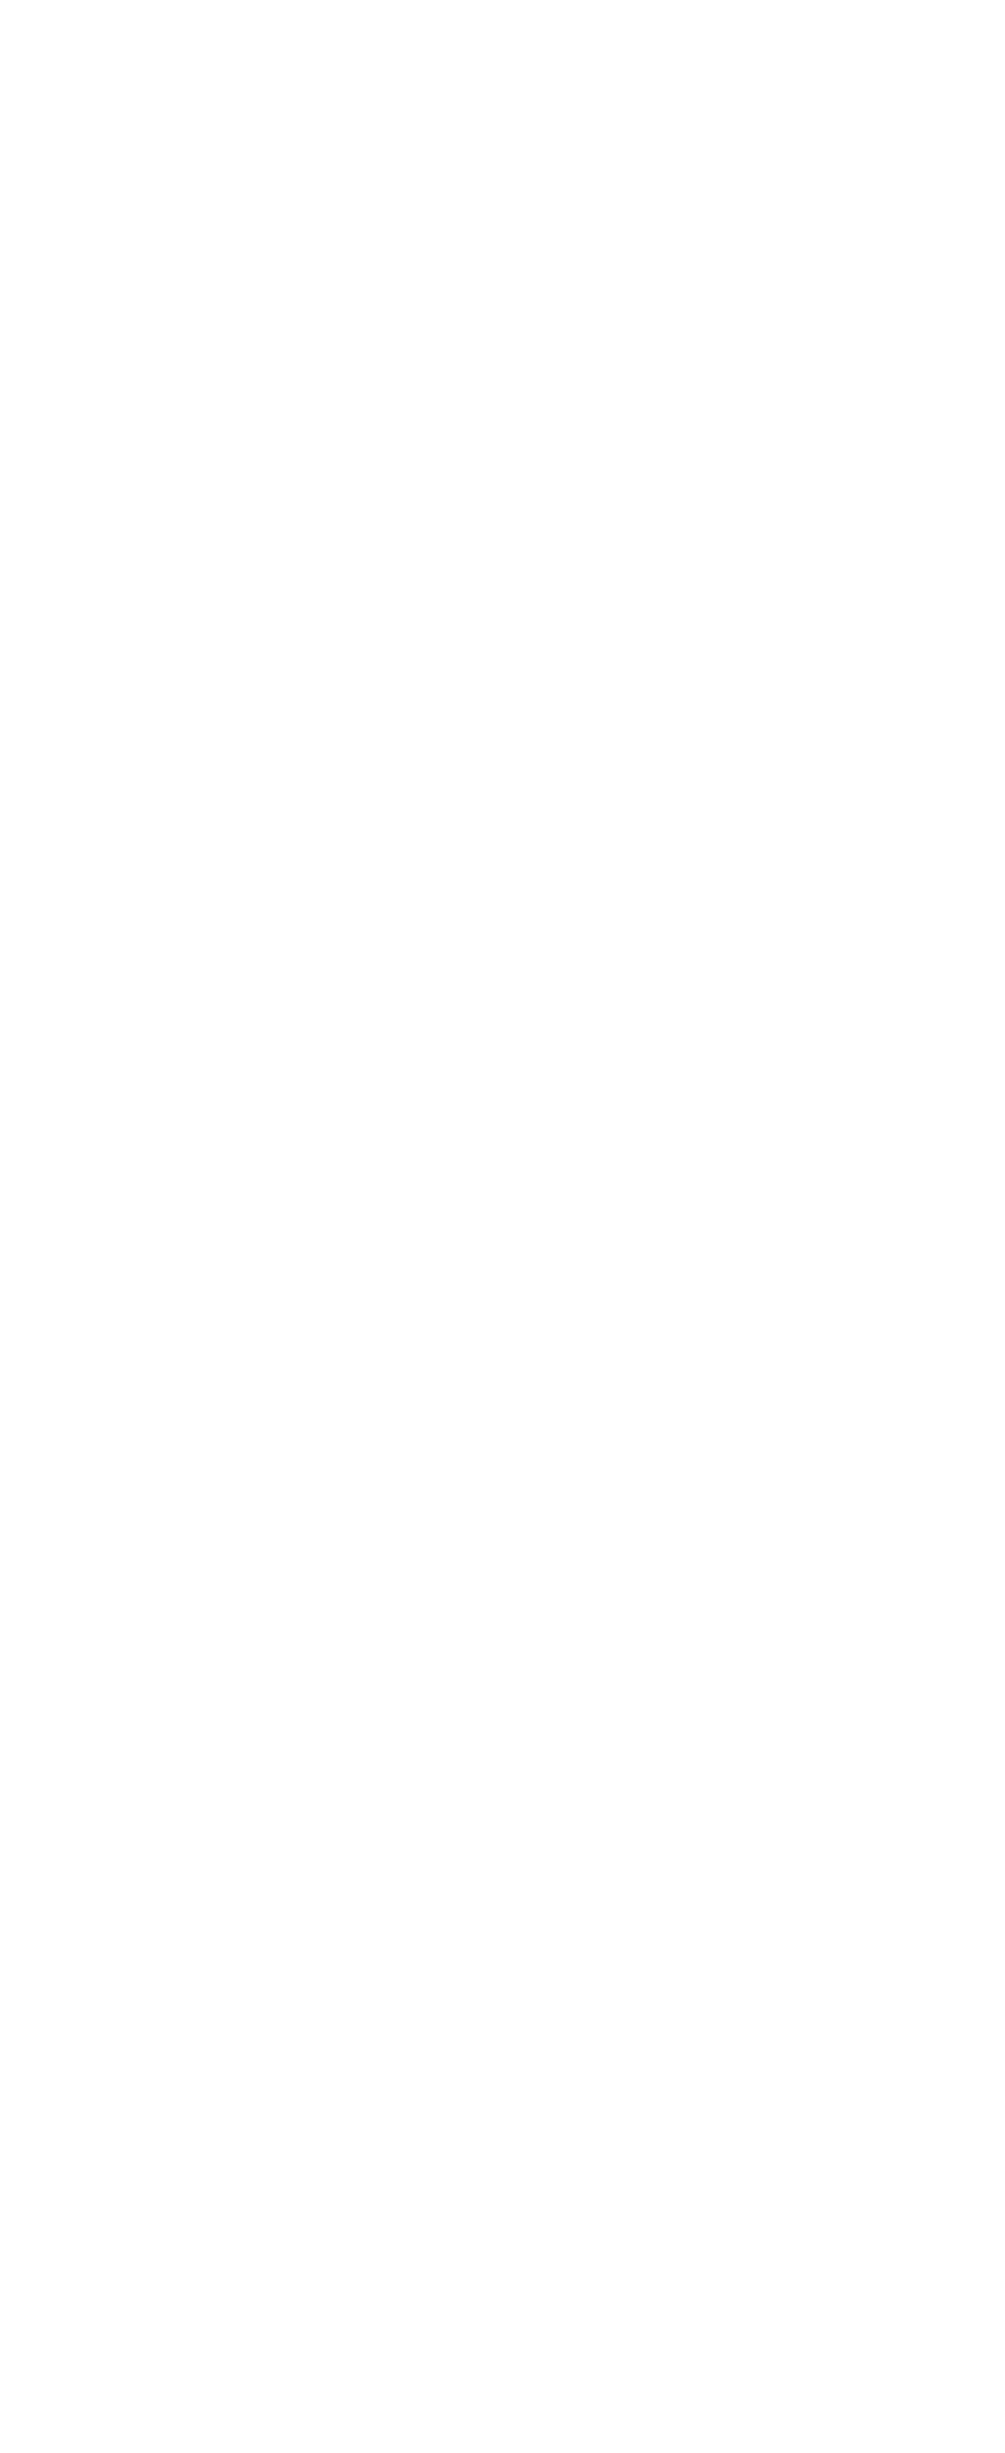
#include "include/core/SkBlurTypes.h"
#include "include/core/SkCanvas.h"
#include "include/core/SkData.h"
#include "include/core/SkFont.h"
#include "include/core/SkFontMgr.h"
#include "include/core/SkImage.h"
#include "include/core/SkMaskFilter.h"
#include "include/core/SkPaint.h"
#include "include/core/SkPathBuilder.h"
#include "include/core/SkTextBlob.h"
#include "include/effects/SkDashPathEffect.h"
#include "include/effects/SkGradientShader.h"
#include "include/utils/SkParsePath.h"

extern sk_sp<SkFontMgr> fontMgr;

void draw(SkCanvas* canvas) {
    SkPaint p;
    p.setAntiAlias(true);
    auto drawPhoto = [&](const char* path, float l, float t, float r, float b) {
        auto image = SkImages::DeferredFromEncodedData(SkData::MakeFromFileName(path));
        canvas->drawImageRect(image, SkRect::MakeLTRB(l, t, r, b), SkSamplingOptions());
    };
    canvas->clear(0xFFFFFFFF);
    drawPhoto("media/1.png", 0, 0, 1005, 200);
    drawPhoto("media/2.png", 51, 26, 334, 176);
    drawPhoto("media/3.png", 0, 200, 1005, 1000);
    drawPhoto("media/4.png", 169, 656, 180, 675);
    drawPhoto("media/4.png", 293, 656, 304, 675);
    drawPhoto("media/5.png", 50, 1160, 956, 1840);
    drawPhoto("media/6.png", 50, 2014, 80, 2036);
    drawPhoto("media/7.png", 374, 2012, 398, 2040);
    drawPhoto("media/8.png", 50, 2342, 76, 2370);
}
